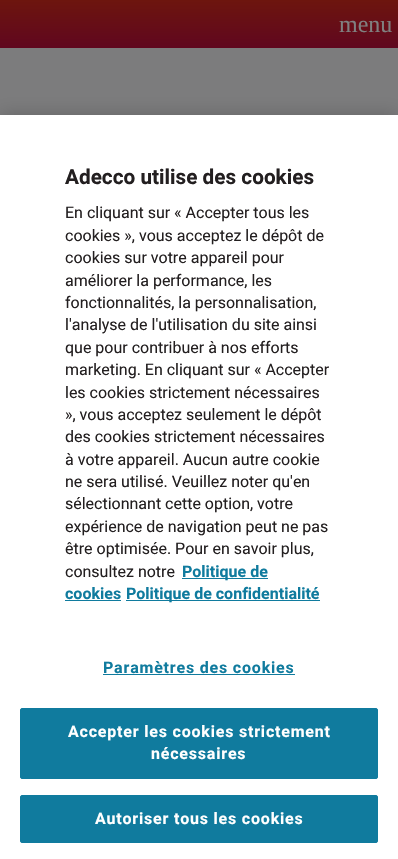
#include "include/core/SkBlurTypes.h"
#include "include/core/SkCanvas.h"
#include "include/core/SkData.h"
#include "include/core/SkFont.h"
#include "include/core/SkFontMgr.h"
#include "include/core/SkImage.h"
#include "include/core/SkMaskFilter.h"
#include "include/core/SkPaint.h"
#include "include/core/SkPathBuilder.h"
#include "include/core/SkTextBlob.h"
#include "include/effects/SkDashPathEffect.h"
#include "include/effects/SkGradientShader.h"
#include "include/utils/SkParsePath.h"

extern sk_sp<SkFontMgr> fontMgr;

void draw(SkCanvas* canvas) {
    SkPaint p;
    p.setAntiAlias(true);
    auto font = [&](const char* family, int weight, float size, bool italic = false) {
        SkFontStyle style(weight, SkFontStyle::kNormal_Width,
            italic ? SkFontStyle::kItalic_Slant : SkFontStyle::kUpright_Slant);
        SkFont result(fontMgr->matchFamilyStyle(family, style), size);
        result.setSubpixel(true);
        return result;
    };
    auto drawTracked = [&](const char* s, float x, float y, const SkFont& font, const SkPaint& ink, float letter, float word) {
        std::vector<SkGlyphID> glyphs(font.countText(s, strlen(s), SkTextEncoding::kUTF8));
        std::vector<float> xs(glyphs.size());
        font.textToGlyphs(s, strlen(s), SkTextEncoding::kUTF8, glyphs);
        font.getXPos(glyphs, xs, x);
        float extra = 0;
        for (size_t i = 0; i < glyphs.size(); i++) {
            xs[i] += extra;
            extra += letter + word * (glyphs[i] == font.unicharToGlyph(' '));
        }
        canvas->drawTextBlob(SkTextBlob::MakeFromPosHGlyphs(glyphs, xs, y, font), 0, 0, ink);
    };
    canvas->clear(0xFF7C7C7D);
    {
        const SkColor colors[] = {0xFF6D150E, 0xFF60071F};
        const float stops[] = {0, 1};
        const SkPoint ends[] = {{199, 0}, {199, 48}};
        p.setShader(SkGradientShader::MakeLinear(ends, colors, stops, 2, SkTileMode::kClamp));
        p.setAlpha(255);
    }
    canvas->drawRect(SkRect::MakeLTRB(0, 0, 398, 48), p);
    auto font1 = font("Liberation Serif", 400, 24);
    p.setShader(nullptr);
    p.setColor(0xFF808080);
    canvas->drawString("menu", 339, 32, font1, p);
    p.setColor(0x33000000);
    p.setMaskFilter(SkMaskFilter::MakeBlur(kNormal_SkBlurStyle, 9));
    canvas->drawRect(SkRect::MakeLTRB(0, 115, 398, 859), p);
    p.setMaskFilter(nullptr);
    p.setColor(0xFFFFFFFF);
    canvas->drawRect(SkRect::MakeLTRB(0, 115, 398, 859), p);
    auto font2 = font("Roboto", 700, 20.75f);
    p.setColor(0xFF231F20);
    canvas->drawString("Adecco utilise des cookies", 65, 184, font2, p);
    auto font3 = font("Roboto", 400, 16);
    {
        const struct { const char* s; float x, y; } items[] = {
            {"En cliquant sur « Accepter tous les", 65, 218},
            {"cookies », vous acceptez le dépôt de", 65, 241},
            {"cookies sur votre appareil pour", 65, 263},
            {"améliorer la performance, les", 65, 286},
            {"fonctionnalités, la personnalisation,", 65, 308},
            {"l'analyse de l'utilisation du site ainsi", 65, 330},
            {"que pour contribuer à nos efforts", 65, 353},
            {"marketing. En cliquant sur « Accepter", 65, 375},
            {"les cookies strictement nécessaires", 65, 398},
            {"», vous acceptez seulement le dépôt", 65, 420},
            {"des cookies strictement nécessaires", 65, 442},
            {"à votre appareil. Aucun autre cookie", 65, 465},
            {"ne sera utilisé. Veuillez noter qu'en", 65, 487},
            {"sélectionnant cette option, votre", 65, 509},
            {"expérience de navigation peut ne pas", 65, 532},
            {"être optimisée. Pour en savoir plus,", 65, 554},
            {"consultez notre", 65, 577},
        };
        for (auto [s, x, y] : items) {
            canvas->drawString(s, x, y, font3, p);
        }
    }
    p.setColor(0xFF107B9E);
    canvas->drawRect(SkRect::MakeLTRB(182, 578, 268, 579), p);
    auto font4 = font("Roboto", 700, 16);
    canvas->drawString("Politique de", 182, 577, font4, p);
    canvas->drawString("cookies", 65, 599, font4, p);
    canvas->drawRect(SkRect::MakeLTRB(65, 600, 121, 601), p);
    canvas->drawRect(SkRect::MakeLTRB(126, 600, 320, 601), p);
    canvas->drawString("Politique de confidentialité", 126, 599, font4, p);
    drawTracked("Paramètres des cookies", 103, 673, font4, p, 0.8f, 0);
    canvas->drawRect(SkRect::MakeLTRB(103, 674, 295, 675), p);
    canvas->drawRoundRect(SkRect::MakeLTRB(20.5f, 708.5f, 377.5f, 778.5f), 1.5f, 1.5f, p);
    p.setStyle(SkPaint::kStroke_Style);
    p.setStrokeWidth(1);
    canvas->drawRoundRect(SkRect::MakeLTRB(20.5f, 708.5f, 377.5f, 778.5f), 1.5f, 1.5f, p);
    p.setStyle(SkPaint::kFill_Style);
    p.setColor(0xFFFFFFFF);
    drawTracked("Accepter les cookies strictement", 68, 737, font4, p, 0.8f, 0);
    drawTracked("nécessaires", 151, 759, font4, p, 0.8f, 0);
    p.setColor(0xFF107B9E);
    canvas->drawRoundRect(SkRect::MakeLTRB(20.5f, 795.5f, 377.5f, 842.5f), 1.5f, 1.5f, p);
    p.setStyle(SkPaint::kStroke_Style);
    canvas->drawRoundRect(SkRect::MakeLTRB(20.5f, 795.5f, 377.5f, 842.5f), 1.5f, 1.5f, p);
    p.setStyle(SkPaint::kFill_Style);
    p.setColor(0xFFFFFFFF);
    drawTracked("Autoriser tous les cookies", 95, 824, font4, p, 0.8f, 0);
}
